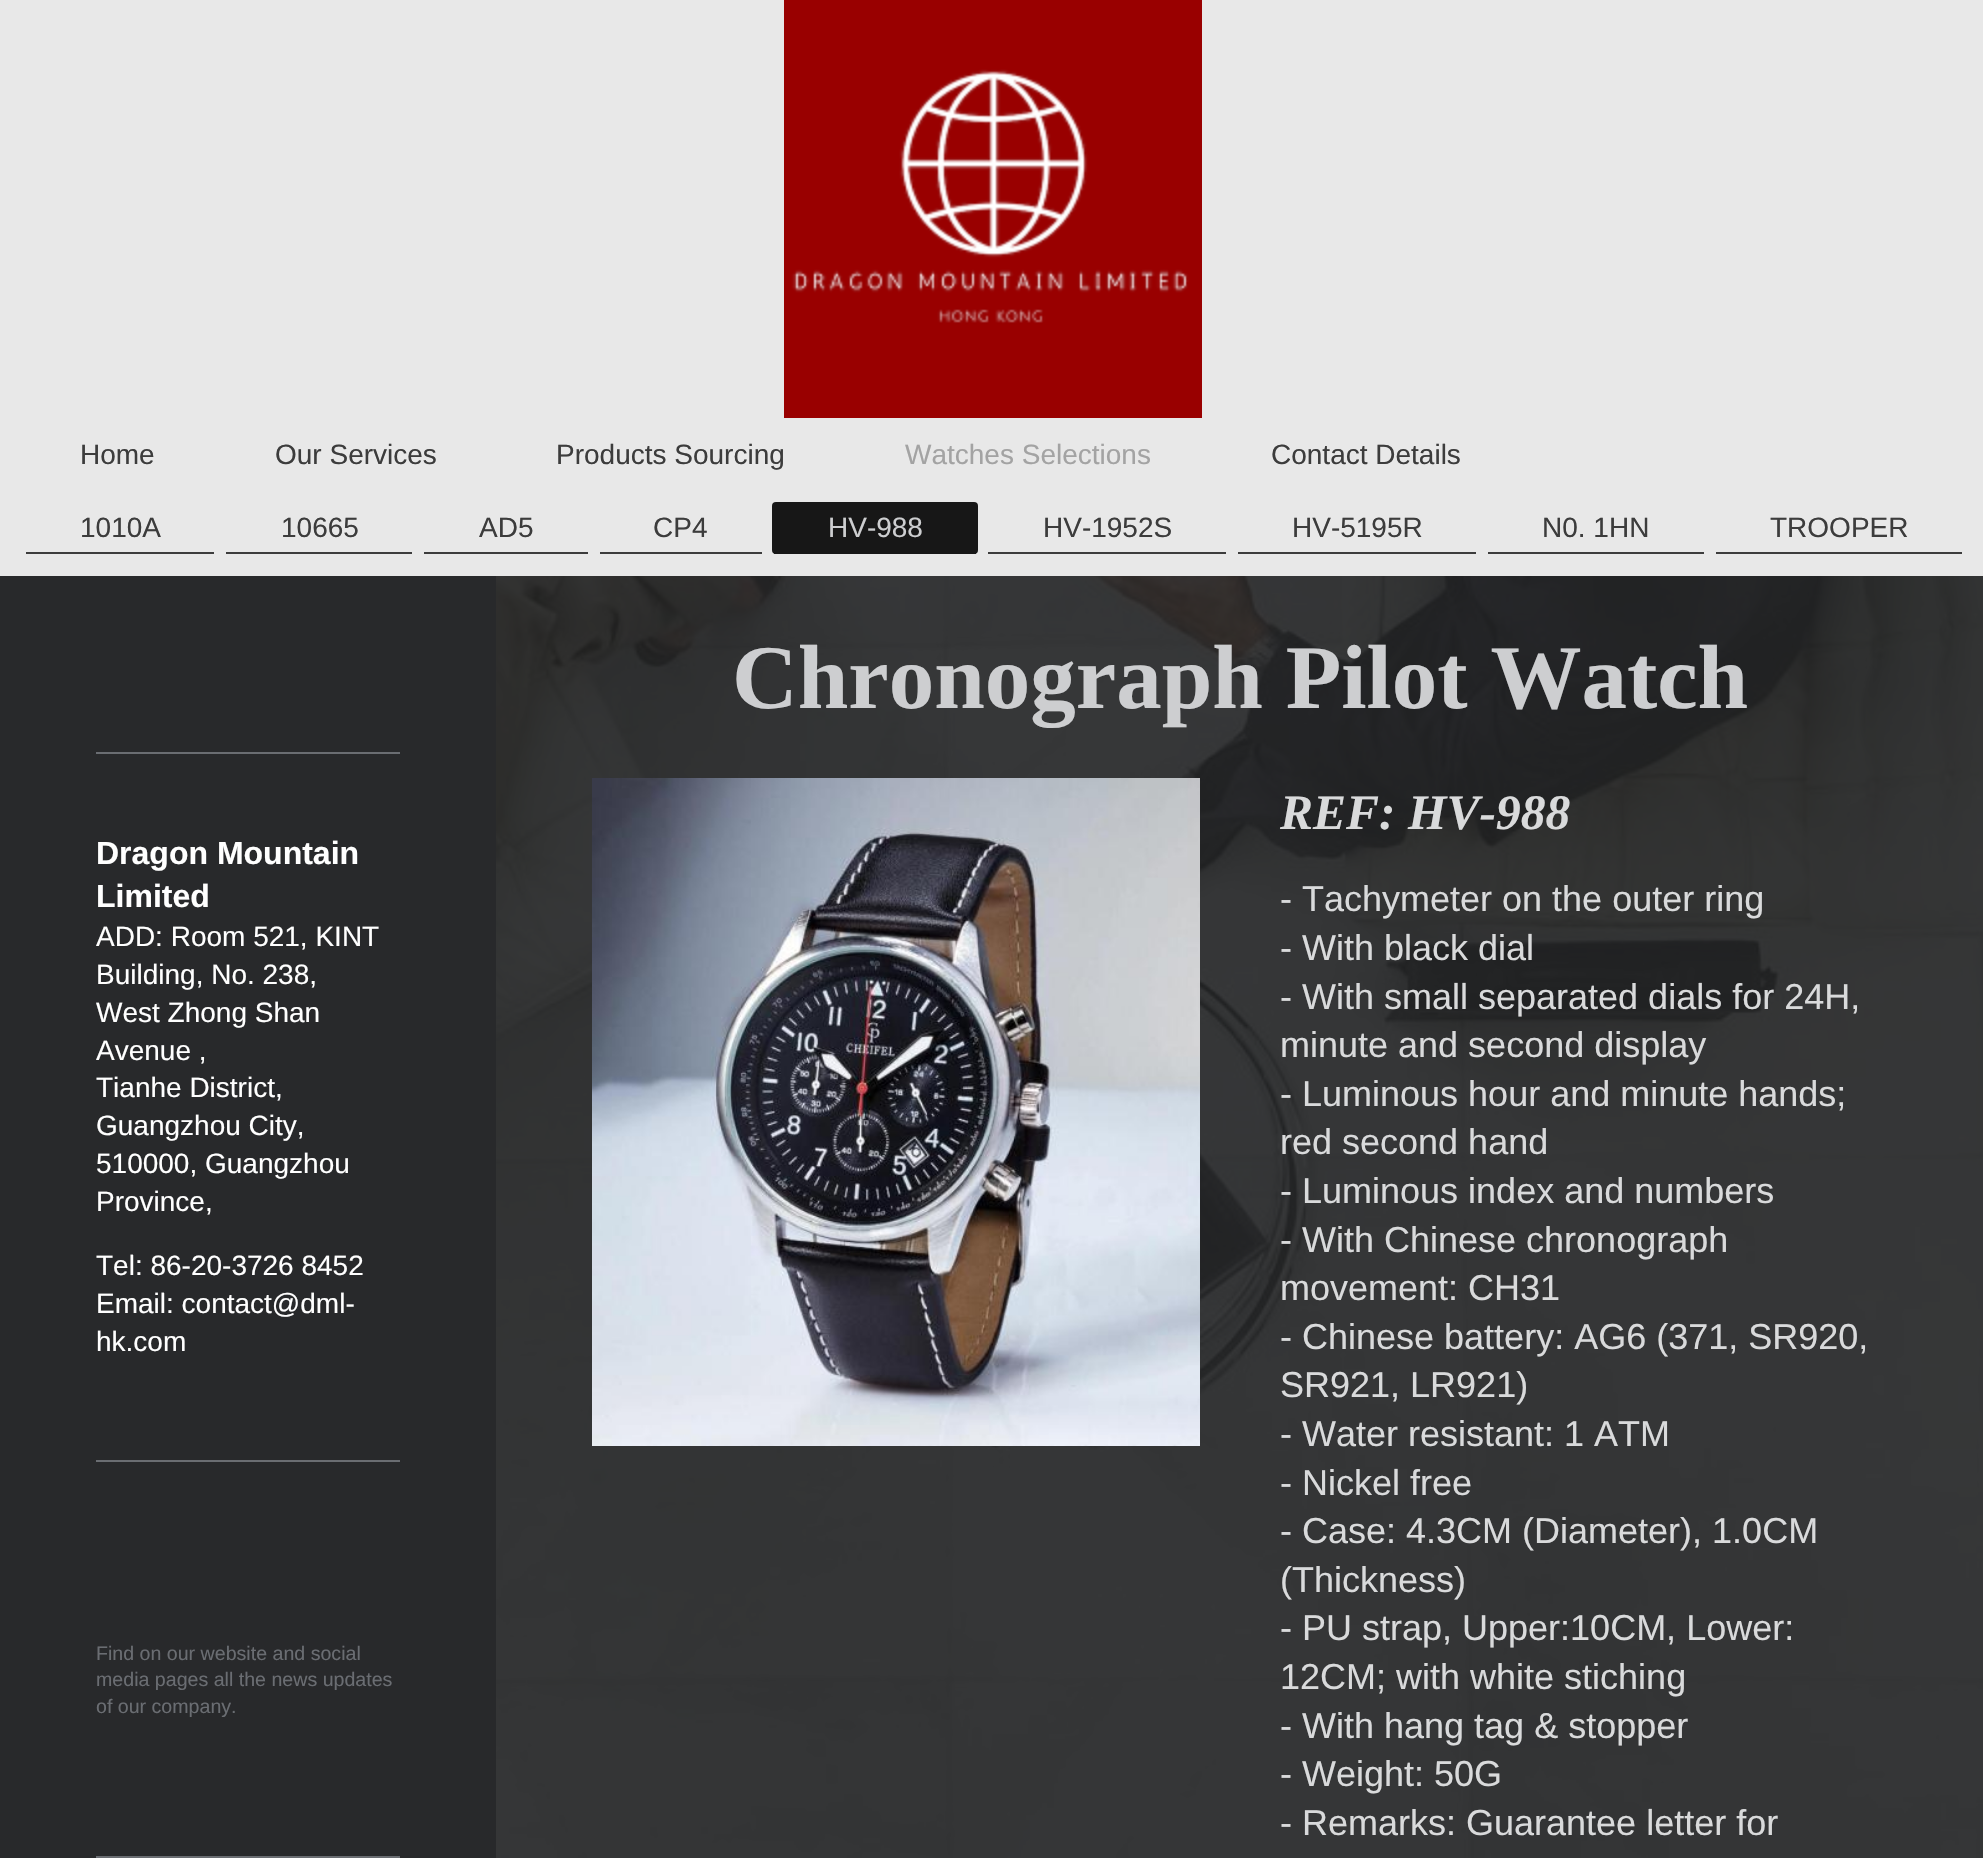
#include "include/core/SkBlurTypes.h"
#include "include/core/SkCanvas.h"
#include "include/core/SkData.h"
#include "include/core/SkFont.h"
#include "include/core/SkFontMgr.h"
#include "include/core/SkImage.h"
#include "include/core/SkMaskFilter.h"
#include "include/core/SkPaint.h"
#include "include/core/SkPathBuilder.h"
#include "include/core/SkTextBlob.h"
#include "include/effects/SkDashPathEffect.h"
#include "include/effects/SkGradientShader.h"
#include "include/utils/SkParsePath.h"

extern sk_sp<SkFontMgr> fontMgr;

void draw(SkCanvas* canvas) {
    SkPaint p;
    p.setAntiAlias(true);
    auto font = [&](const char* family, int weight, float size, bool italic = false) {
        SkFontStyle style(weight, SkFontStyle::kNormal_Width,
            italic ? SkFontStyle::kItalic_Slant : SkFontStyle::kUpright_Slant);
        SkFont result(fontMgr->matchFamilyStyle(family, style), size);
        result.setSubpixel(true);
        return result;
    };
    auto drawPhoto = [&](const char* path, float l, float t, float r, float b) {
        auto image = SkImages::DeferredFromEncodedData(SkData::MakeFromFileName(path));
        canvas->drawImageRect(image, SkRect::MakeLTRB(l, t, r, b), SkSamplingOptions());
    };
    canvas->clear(0xFFFFFFFF);
    drawPhoto("media/1.png", 496, 576, 1983, 1858);
    p.setColor(0xFFE8E8E8);
    canvas->drawRect(SkRect::MakeLTRB(0, 0, 1983, 576), p);
    drawPhoto("media/2.png", 784, 0, 1202, 418);
    auto font1 = font("Liberation Sans", 400, 28);
    p.setColor(0xFF3C3C3C);
    {
        const struct { const char* s; float x, y; } items[] = {
            {"Home", 80, 464},
            {"Our Services", 275, 464},
            {"Products Sourcing", 556, 464},
        };
        for (auto [s, x, y] : items) {
            canvas->drawString(s, x, y, font1, p);
        }
    }
    p.setColor(0xFFA3A3A3);
    canvas->drawString("Watches Selections", 905, 464, font1, p);
    p.setColor(0xFF3C3C3C);
    canvas->drawString("Contact Details", 1271, 464, font1, p);
    canvas->drawRect(SkRect::MakeLTRB(26, 552, 214, 554), p);
    canvas->drawString("1010A", 80, 537, font1, p);
    canvas->drawRect(SkRect::MakeLTRB(226, 552, 412, 554), p);
    canvas->drawString("10665", 281, 537, font1, p);
    canvas->drawRect(SkRect::MakeLTRB(424, 552, 588, 554), p);
    canvas->drawString("AD5", 479, 537, font1, p);
    canvas->drawRect(SkRect::MakeLTRB(600, 552, 762, 554), p);
    canvas->drawString("CP4", 653, 537, font1, p);
    p.setColor(0xFF171717);
    canvas->drawRoundRect(SkRect::MakeLTRB(772, 502, 978, 554), 4, 4, p);
    canvas->drawRect(SkRect::MakeLTRB(774, 553, 976, 554), p);
    p.setColor(0xFFCDCED0);
    canvas->drawString("HV-988", 828, 537, font1, p);
    p.setColor(0xFF3C3C3C);
    canvas->drawRect(SkRect::MakeLTRB(988, 552, 1226, 554), p);
    canvas->drawString("HV-1952S", 1043, 537, font1, p);
    canvas->drawRect(SkRect::MakeLTRB(1238, 552, 1476, 554), p);
    canvas->drawString("HV-5195R", 1292, 537, font1, p);
    canvas->drawRect(SkRect::MakeLTRB(1488, 552, 1704, 554), p);
    canvas->drawString("N0. 1HN", 1542, 537, font1, p);
    canvas->drawRect(SkRect::MakeLTRB(1716, 552, 1962, 554), p);
    canvas->drawString("TROOPER", 1770, 537, font1, p);
    p.setColor(0xFF28292B);
    canvas->drawRect(SkRect::MakeLTRB(0, 576, 496, 1858), p);
    p.setColor(0xFF6A6D72);
    canvas->drawRect(SkRect::MakeLTRB(96, 752, 400, 754), p);
    auto font2 = font("Liberation Sans", 700, 32);
    p.setColor(0xFFFFFFFF);
    canvas->drawString("Dragon Mountain", 96, 864, font2, p);
    canvas->drawString("Limited", 96, 907, font2, p);
    {
        const struct { const char* s; float x, y; } items[] = {
            {"ADD: Room 521, KINT", 96, 946},
            {"Building, No. 238,", 96, 984},
            {"West Zhong Shan", 96, 1022},
            {"Avenue ,", 96, 1060},
            {"Tianhe District,", 96, 1097},
            {"Guangzhou City,", 96, 1135},
            {"510000, Guangzhou", 96, 1173},
            {"Province,", 96, 1211},
            {"Tel: 86-20-3726 8452", 96, 1275},
            {"Email: contact@dml-", 96, 1313},
            {"hk.com", 96, 1351},
        };
        for (auto [s, x, y] : items) {
            canvas->drawString(s, x, y, font1, p);
        }
    }
    p.setColor(0xFF6A6D72);
    canvas->drawRect(SkRect::MakeLTRB(96, 1460, 400, 1462), p);
    auto font3 = font("Liberation Sans", 400, 19.6f);
    {
        const struct { const char* s; float x, y; } items[] = {
            {"Find on our website and social", 96, 1660},
            {"media pages all the news updates", 96, 1686},
            {"of our company.", 96, 1713},
        };
        for (auto [s, x, y] : items) {
            canvas->drawString(s, x, y, font3, p);
        }
    }
    canvas->drawRect(SkRect::MakeLTRB(96, 1856, 400, 1858), p);
    p.setColor(0xE6212224);
    canvas->drawRect(SkRect::MakeLTRB(496, 576, 1983, 1858), p);
    auto font4 = font("Liberation Serif", 700, 91);
    p.setColor(0xFFCDCED0);
    canvas->drawString("Chronograph Pilot Watch", 732, 708, font4, p);
    drawPhoto("media/3.png", 592, 778, 1200, 1446);
    auto font5 = font("Liberation Serif", 700, 49.5f, true);
    p.setColor(0xFFD9DADB);
    canvas->drawString("REF: HV-988", 1280, 829, font5, p);
    auto font6 = font("Liberation Sans", 400, 36);
    {
        const struct { const char* s; float x, y; } items[] = {
            {"- Tachymeter on the outer ring", 1280, 911},
            {"- With black dial", 1280, 960},
            {"- With small separated dials for 24H,", 1280, 1009},
            {"minute and second display", 1280, 1057},
            {"- Luminous hour and minute hands;", 1280, 1106},
            {"red second hand", 1280, 1154},
            {"- Luminous index and numbers", 1280, 1203},
            {"- With Chinese chronograph", 1280, 1252},
            {"movement: CH31", 1280, 1300},
            {"- Chinese battery: AG6 (371, SR920,", 1280, 1349},
            {"SR921, LR921)", 1280, 1397},
            {"- Water resistant: 1 ATM", 1280, 1446},
            {"- Nickel free", 1280, 1495},
            {"- Case: 4.3CM (Diameter), 1.0CM", 1280, 1543},
            {"(Thickness)", 1280, 1592},
            {"- PU strap, Upper:10CM, Lower:", 1280, 1640},
            {"12CM; with white stiching", 1280, 1689},
            {"- With hang tag & stopper", 1280, 1738},
            {"- Weight: 50G", 1280, 1786},
            {"- Remarks: Guarantee letter for", 1280, 1835},
        };
        for (auto [s, x, y] : items) {
            canvas->drawString(s, x, y, font6, p);
        }
    }
}
